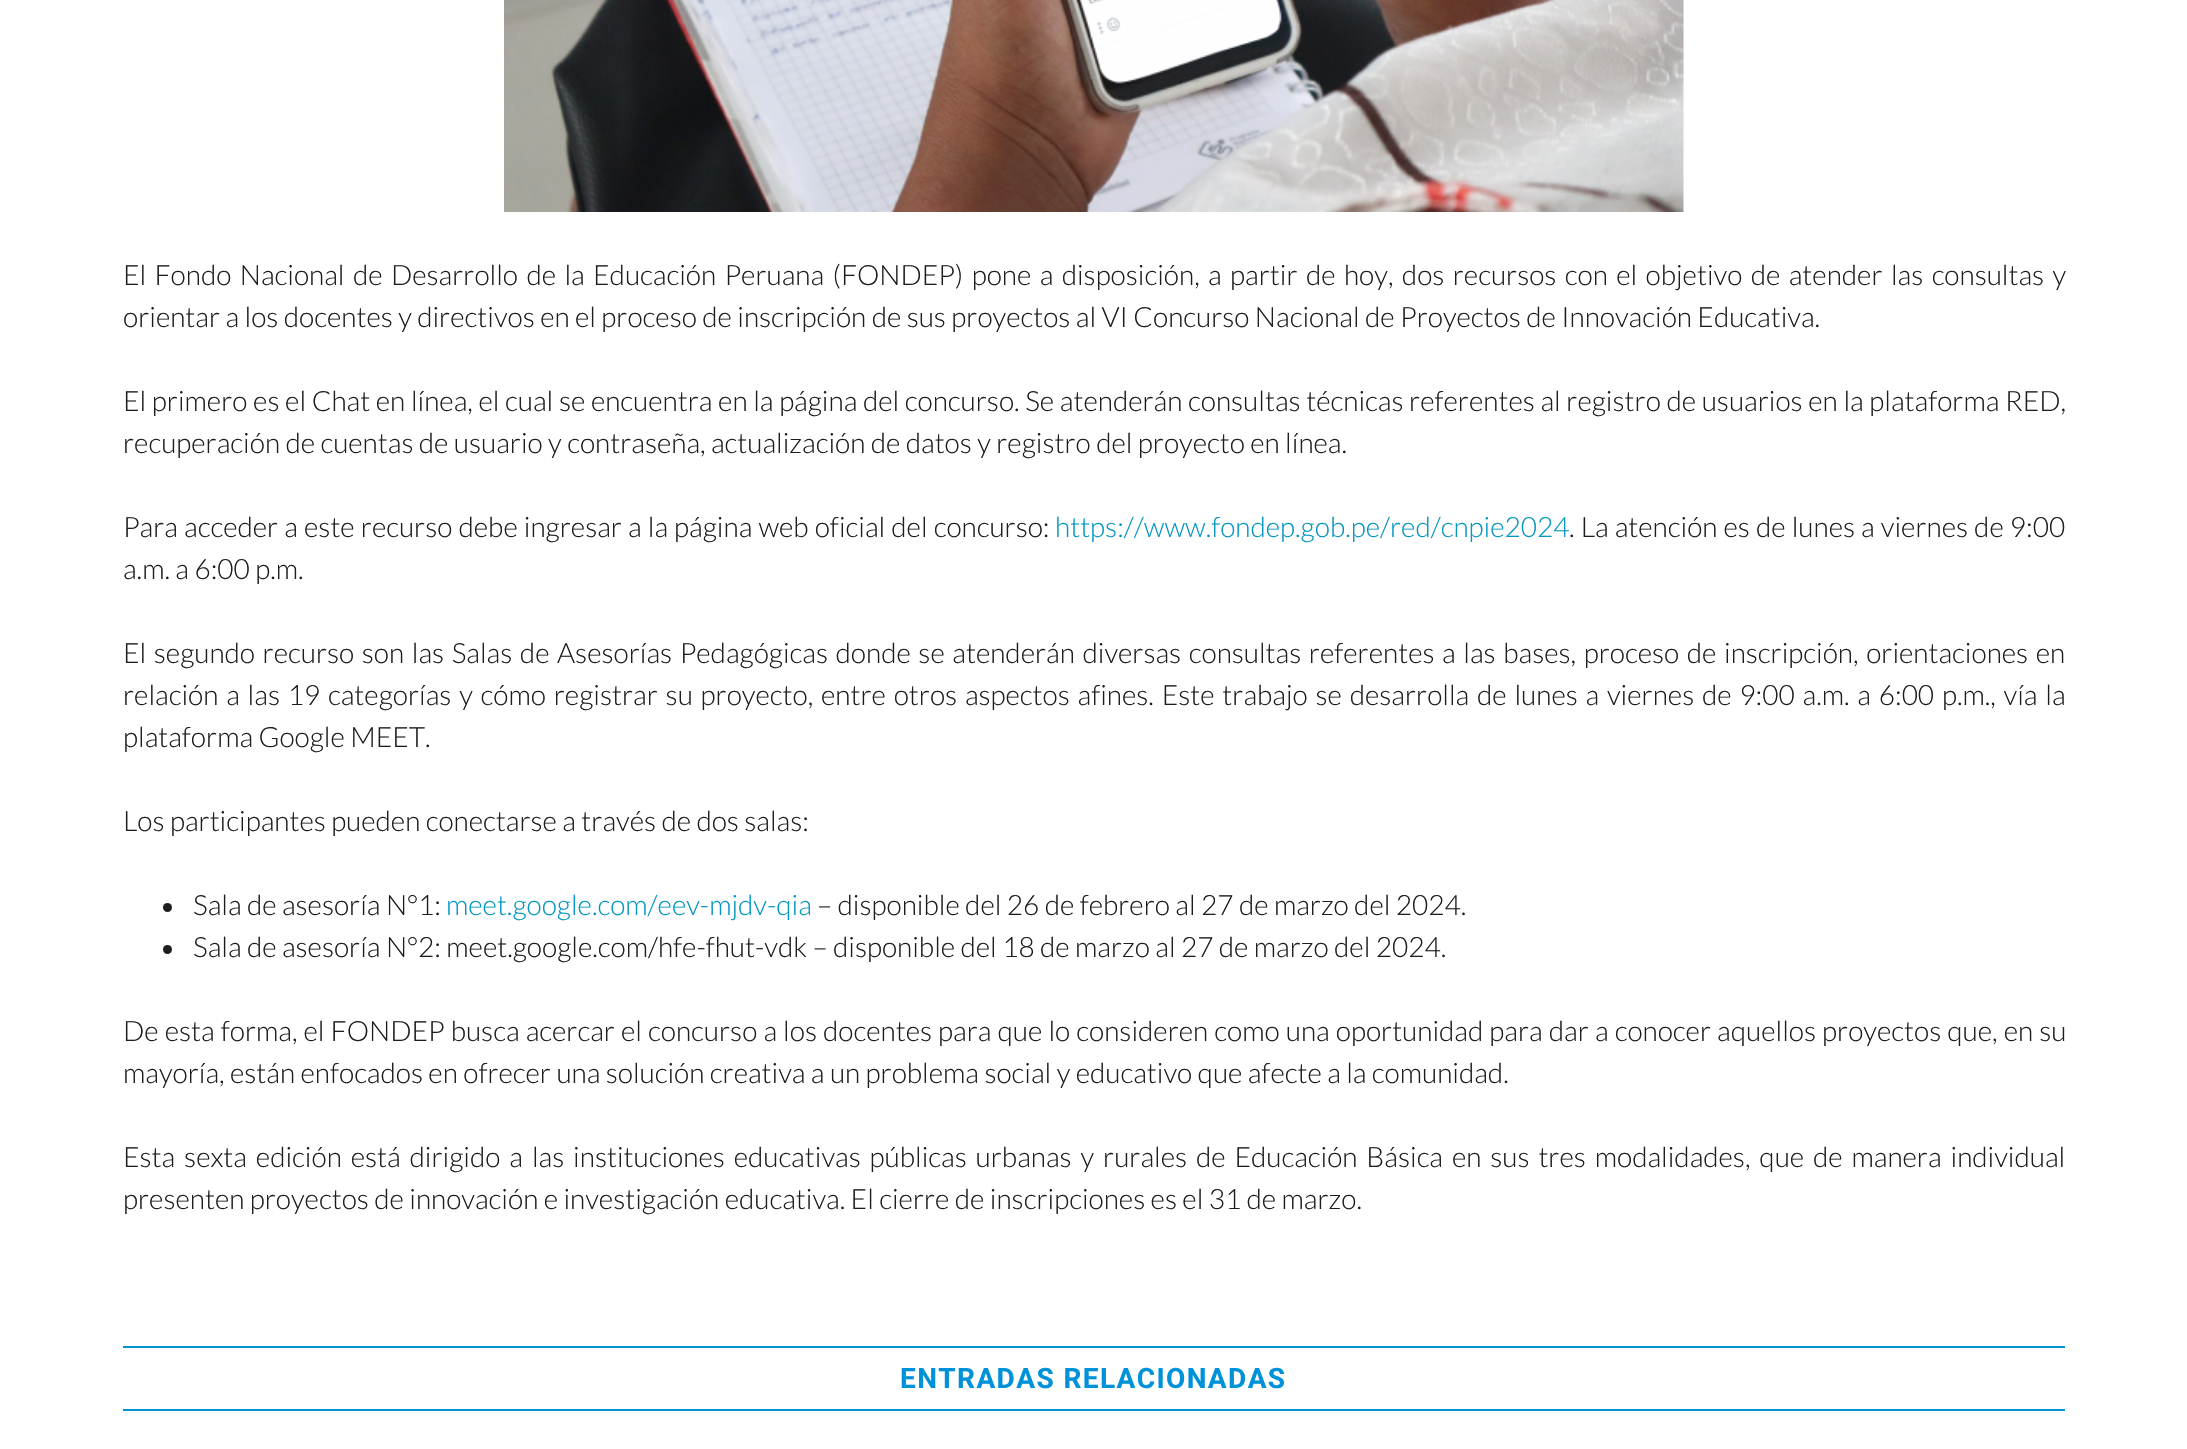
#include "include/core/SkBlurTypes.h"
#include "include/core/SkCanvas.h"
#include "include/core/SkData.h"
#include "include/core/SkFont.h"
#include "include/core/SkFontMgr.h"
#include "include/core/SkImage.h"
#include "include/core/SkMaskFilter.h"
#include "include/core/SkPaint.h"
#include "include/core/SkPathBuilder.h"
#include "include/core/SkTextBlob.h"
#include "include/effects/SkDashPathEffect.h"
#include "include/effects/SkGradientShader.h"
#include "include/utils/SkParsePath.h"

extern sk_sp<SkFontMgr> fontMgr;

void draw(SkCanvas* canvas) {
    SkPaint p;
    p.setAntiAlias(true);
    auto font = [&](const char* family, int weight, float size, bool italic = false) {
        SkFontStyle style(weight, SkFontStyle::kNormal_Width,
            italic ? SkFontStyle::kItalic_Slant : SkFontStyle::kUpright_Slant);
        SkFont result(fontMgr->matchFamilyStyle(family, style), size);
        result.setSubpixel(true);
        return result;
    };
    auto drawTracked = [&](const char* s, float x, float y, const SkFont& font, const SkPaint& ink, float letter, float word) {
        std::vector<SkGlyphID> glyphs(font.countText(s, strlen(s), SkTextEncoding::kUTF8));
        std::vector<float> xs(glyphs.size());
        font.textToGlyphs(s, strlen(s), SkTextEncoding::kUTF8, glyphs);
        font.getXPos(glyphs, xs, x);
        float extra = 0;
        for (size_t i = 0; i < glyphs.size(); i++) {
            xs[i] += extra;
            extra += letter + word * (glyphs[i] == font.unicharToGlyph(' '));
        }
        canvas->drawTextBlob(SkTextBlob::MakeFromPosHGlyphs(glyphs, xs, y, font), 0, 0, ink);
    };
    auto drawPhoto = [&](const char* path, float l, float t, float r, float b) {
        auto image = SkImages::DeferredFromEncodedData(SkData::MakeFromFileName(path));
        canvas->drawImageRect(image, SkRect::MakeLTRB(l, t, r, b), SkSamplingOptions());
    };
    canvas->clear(0xFFFFFFFF);
    drawPhoto("media/1.png", 504, 0, 1684, 212);
    auto font1 = font("Lato", 300, 28);
    p.setColor(0xFF1D1D1B);
    drawTracked("El Fondo Nacional de Desarrollo de la Educación Peruana (FONDEP) pone a disposición, a partir de hoy, dos recursos con el objetivo de atender las consultas y", 123, 285, font1, p, 0, 3);
    canvas->drawString("orientar a los docentes y directivos en el proceso de inscripción de sus proyectos al VI Concurso Nacional de Proyectos de Innovación Educativa.", 123, 327, font1, p);
    drawTracked("El primero es el Chat en línea, el cual se encuentra en la página del concurso. Se atenderán consultas técnicas referentes al registro de usuarios en la plataforma RED,", 123, 411, font1, p, 0, 0.25f);
    canvas->drawString("recuperación de cuentas de usuario y contraseña, actualización de datos y registro del proyecto en línea.", 123, 453, font1, p);
    drawTracked("Para acceder a este recurso debe ingresar a la página web oficial del concurso:", 123, 537, font1, p, 0, 0.7f);
    p.setColor(0xFF0396C0);
    canvas->drawString("https://www.fondep.gob.pe/red/cnpie2024", 1055, 537, font1, p);
    p.setColor(0xFF1D1D1B);
    drawTracked(". La atención es de lunes a viernes de 9:00", 1569, 537, font1, p, 0, 0.7f);
    canvas->drawString("a.m. a 6:00 p.m.", 123, 579, font1, p);
    drawTracked("El segundo recurso son las Salas de Asesorías Pedagógicas donde se atenderán diversas consultas referentes a las bases, proceso de inscripción, orientaciones en", 123, 663, font1, p, 0, 2.2f);
    drawTracked("relación a las 19 categorías y cómo registrar su proyecto, entre otros aspectos afines. Este trabajo se desarrolla de lunes a viernes de 9:00 a.m. a 6:00 p.m., vía la", 123, 705, font1, p, 0, 2.4f);
    canvas->drawString("plataforma Google MEET.", 123, 747, font1, p);
    canvas->drawString("Los participantes pueden conectarse a través de dos salas:", 123, 831, font1, p);
    canvas->drawCircle(167.5f, 907.5f, 4.5f, p);
    canvas->drawString("Sala de asesoría N°1:", 193, 915, font1, p);
    p.setColor(0xFF0396C0);
    canvas->drawString("meet.google.com/eev-mjdv-qia", 446, 915, font1, p);
    p.setColor(0xFF1D1D1B);
    canvas->drawString("– disponible del 26 de febrero al 27 de marzo del 2024.", 817, 915, font1, p);
    canvas->drawCircle(167.5f, 949.5f, 4.5f, p);
    canvas->drawString("Sala de asesoría N°2: meet.google.com/hfe-fhut-vdk – disponible del 18 de marzo al 27 de marzo del 2024.", 193, 957, font1, p);
    drawTracked("De esta forma, el FONDEP busca acercar el concurso a los docentes para que lo consideren como una oportunidad para dar a conocer aquellos proyectos que, en su", 123, 1041, font1, p, 0, 0.7f);
    canvas->drawString("mayoría, están enfocados en ofrecer una solución creativa a un problema social y educativo que afecte a la comunidad.", 123, 1083, font1, p);
    drawTracked("Esta sexta edición está dirigido a las instituciones educativas públicas urbanas y rurales de Educación Básica en sus tres modalidades, que de manera individual", 123, 1167, font1, p, 0, 3.5f);
    canvas->drawString("presenten proyectos de innovación e investigación educativa. El cierre de inscripciones es el 31 de marzo.", 123, 1209, font1, p);
    p.setColor(0xFF0092D9);
    canvas->drawRect(SkRect::MakeLTRB(123, 1346, 2065, 1348), p);
    canvas->drawRect(SkRect::MakeLTRB(123, 1409, 2065, 1411), p);
    auto font2 = font("Roboto", 700, 28);
    drawTracked("ENTRADAS RELACIONADAS", 900, 1388, font2, p, 1.4f, 0);
}
